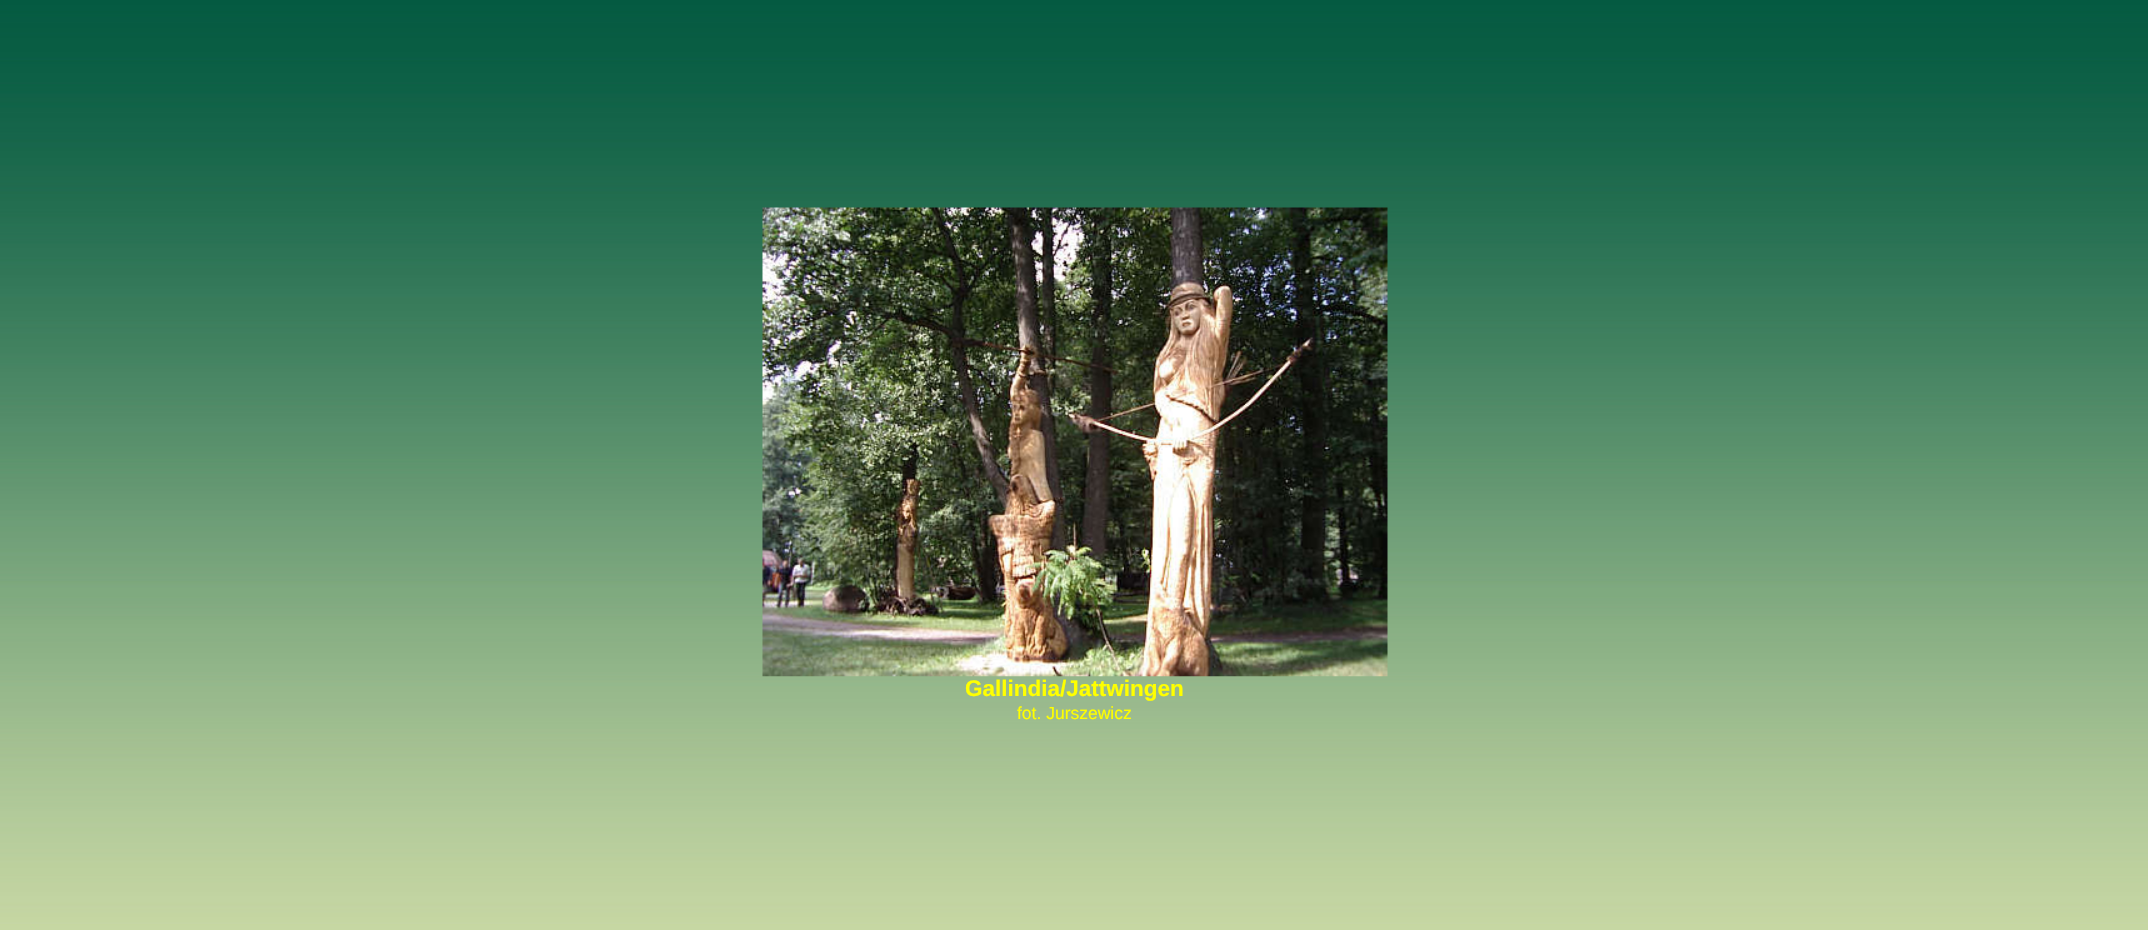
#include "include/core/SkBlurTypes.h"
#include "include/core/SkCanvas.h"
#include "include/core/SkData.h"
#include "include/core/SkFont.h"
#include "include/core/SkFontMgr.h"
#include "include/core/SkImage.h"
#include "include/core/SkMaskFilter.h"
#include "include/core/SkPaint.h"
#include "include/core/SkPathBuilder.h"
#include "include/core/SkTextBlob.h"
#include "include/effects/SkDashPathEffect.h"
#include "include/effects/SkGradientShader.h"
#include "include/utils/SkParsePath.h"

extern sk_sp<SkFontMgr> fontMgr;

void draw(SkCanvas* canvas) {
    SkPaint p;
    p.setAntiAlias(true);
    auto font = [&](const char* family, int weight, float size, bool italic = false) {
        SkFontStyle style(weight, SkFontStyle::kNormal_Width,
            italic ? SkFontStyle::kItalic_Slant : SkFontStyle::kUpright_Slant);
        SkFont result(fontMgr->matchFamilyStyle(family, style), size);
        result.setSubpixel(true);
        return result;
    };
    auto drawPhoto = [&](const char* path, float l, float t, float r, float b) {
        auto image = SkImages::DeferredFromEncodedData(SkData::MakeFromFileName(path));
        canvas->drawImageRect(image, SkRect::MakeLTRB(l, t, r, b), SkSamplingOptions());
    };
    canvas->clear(0xFFFFFFFF);
    drawPhoto("media/1.png", 0, 0, 2148, 930);
    drawPhoto("media/2.png", 762, 207, 1388, 677);
    auto font1 = font("Liberation Sans", 700, 22.5f);
    p.setColor(0xFFFFFF00);
    canvas->drawString("Gallindia/Jattwingen", 965, 696, font1, p);
    auto font2 = font("Liberation Sans", 400, 17.5f);
    canvas->drawString("fot. Jurszewicz", 1017, 719, font2, p);
}
